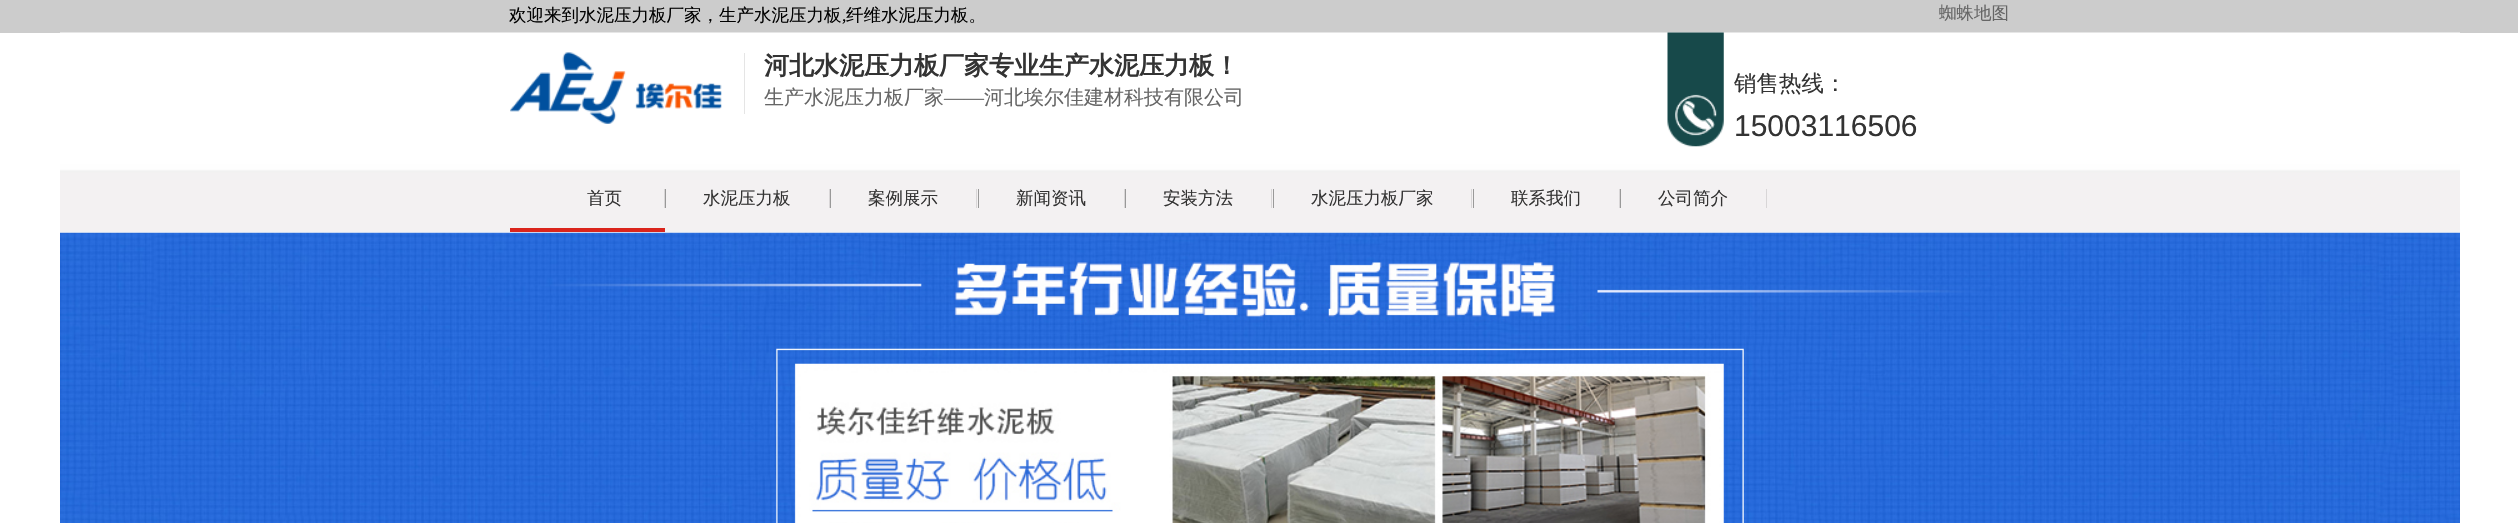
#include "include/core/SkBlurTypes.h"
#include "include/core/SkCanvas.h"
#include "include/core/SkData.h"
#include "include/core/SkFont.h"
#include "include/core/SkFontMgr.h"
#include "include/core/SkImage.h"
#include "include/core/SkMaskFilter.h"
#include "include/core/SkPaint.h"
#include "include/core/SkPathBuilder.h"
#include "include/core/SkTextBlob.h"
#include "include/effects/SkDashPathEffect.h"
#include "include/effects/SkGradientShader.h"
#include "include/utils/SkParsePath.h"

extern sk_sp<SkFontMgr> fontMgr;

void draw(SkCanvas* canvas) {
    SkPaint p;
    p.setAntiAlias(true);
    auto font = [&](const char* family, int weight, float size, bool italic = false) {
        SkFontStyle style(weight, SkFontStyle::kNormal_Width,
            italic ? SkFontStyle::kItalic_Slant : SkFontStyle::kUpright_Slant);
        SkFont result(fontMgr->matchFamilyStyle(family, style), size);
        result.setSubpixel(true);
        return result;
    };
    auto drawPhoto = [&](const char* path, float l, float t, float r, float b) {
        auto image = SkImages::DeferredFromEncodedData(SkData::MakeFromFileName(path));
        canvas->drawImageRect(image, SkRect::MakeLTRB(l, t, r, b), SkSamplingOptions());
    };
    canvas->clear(0xFFFFFFFF);
    p.setColor(0xFFCCCCCC);
    canvas->drawRect(SkRect::MakeLTRB(0, 0, 2518, 33), p);
    auto font1 = font("WenQuanYi Zen Hei", 500, 17.5f);
    p.setColor(0xFF000000);
    canvas->drawString("欢迎来到水泥压力板厂家，生产水泥压力板", 509, 21, font1, p);
    auto font2 = font("Liberation Serif", 400, 17.5f);
    canvas->drawString(",", 842, 21, font2, p);
    canvas->drawString("纤维水泥压力板。", 846, 21, font1, p);
    p.setColor(0xFF666666);
    canvas->drawString("蜘蛛地图", 1939, 19, font1, p);
    drawPhoto("media/1.png", 60, 32, 2460, 233);
    drawPhoto("media/2.png", 510, 52, 722, 124);
    p.setColor(0xFFE5E5E5);
    canvas->drawRect(SkRect::MakeLTRB(744, 53, 745, 114), p);
    auto font3 = font("WenQuanYi Zen Hei", 700, 25);
    p.setColor(0xFF333333);
    canvas->drawString("河北水泥压力板厂家专业生产水泥压力板！", 764, 74, font3, p);
    auto font4 = font("WenQuanYi Zen Hei", 500, 20);
    p.setColor(0xFF666666);
    canvas->drawString("生产水泥压力板厂家", 764, 104, font4, p);
    auto font5 = font("Liberation Serif", 400, 20);
    canvas->drawString("——", 944, 104, font5, p);
    canvas->drawString("河北埃尔佳建材科技有限公司", 984, 104, font4, p);
    drawPhoto("media/3.png", 1667, 32, 1724, 147);
    auto font6 = font("WenQuanYi Zen Hei", 500, 22.5f);
    p.setColor(0xFF333333);
    canvas->drawString("销售热线：", 1734, 91, font6, p);
    auto font7 = font("Liberation Sans", 400, 30);
    canvas->drawString("15003116506", 1734, 136, font7, p);
    canvas->drawString("首页", 587, 204, font1, p);
    p.setColor(0xFFD8D6D7);
    canvas->drawRect(SkRect::MakeLTRB(664, 189, 665, 208), p);
    p.setColor(0xFFDA251C);
    canvas->drawRect(SkRect::MakeLTRB(510, 228, 665, 232), p);
    p.setColor(0xFF333333);
    canvas->drawString("水泥压力板", 703, 204, font1, p);
    p.setColor(0xFFD8D6D7);
    canvas->drawRect(SkRect::MakeLTRB(829, 189, 830, 208), p);
    p.setColor(0xFF999999);
    canvas->drawRect(SkRect::MakeLTRB(665, 189, 666, 208), p);
    p.setColor(0xFF333333);
    canvas->drawString("案例展示", 868, 204, font1, p);
    p.setColor(0xFFD8D6D7);
    canvas->drawRect(SkRect::MakeLTRB(976, 189, 977, 208), p);
    p.setColor(0xFF999999);
    canvas->drawRect(SkRect::MakeLTRB(830, 189, 831, 208), p);
    p.setColor(0xFF333333);
    canvas->drawString("新闻资讯", 1016, 204, font1, p);
    p.setColor(0xFFD8D6D7);
    canvas->drawRect(SkRect::MakeLTRB(1124, 189, 1125, 208), p);
    p.setColor(0xFF999999);
    canvas->drawRect(SkRect::MakeLTRB(978, 189, 979, 208), p);
    p.setColor(0xFF333333);
    canvas->drawString("安装方法", 1163, 204, font1, p);
    p.setColor(0xFFD8D6D7);
    canvas->drawRect(SkRect::MakeLTRB(1271, 189, 1272, 208), p);
    p.setColor(0xFF999999);
    canvas->drawRect(SkRect::MakeLTRB(1125, 189, 1126, 208), p);
    p.setColor(0xFF333333);
    canvas->drawString("水泥压力板厂家", 1311, 204, font1, p);
    p.setColor(0xFFD8D6D7);
    canvas->drawRect(SkRect::MakeLTRB(1471, 189, 1472, 208), p);
    p.setColor(0xFF999999);
    canvas->drawRect(SkRect::MakeLTRB(1273, 189, 1274, 208), p);
    p.setColor(0xFF333333);
    canvas->drawString("联系我们", 1511, 204, font1, p);
    p.setColor(0xFFD8D6D7);
    canvas->drawRect(SkRect::MakeLTRB(1619, 189, 1620, 208), p);
    p.setColor(0xFF999999);
    canvas->drawRect(SkRect::MakeLTRB(1473, 189, 1474, 208), p);
    p.setColor(0xFF333333);
    canvas->drawString("公司简介", 1658, 204, font1, p);
    p.setColor(0xFFD8D6D7);
    canvas->drawRect(SkRect::MakeLTRB(1766, 189, 1767, 208), p);
    p.setColor(0xFF999999);
    canvas->drawRect(SkRect::MakeLTRB(1620, 189, 1621, 208), p);
    drawPhoto("media/4.png", 60, 232, 2460, 523);
}
